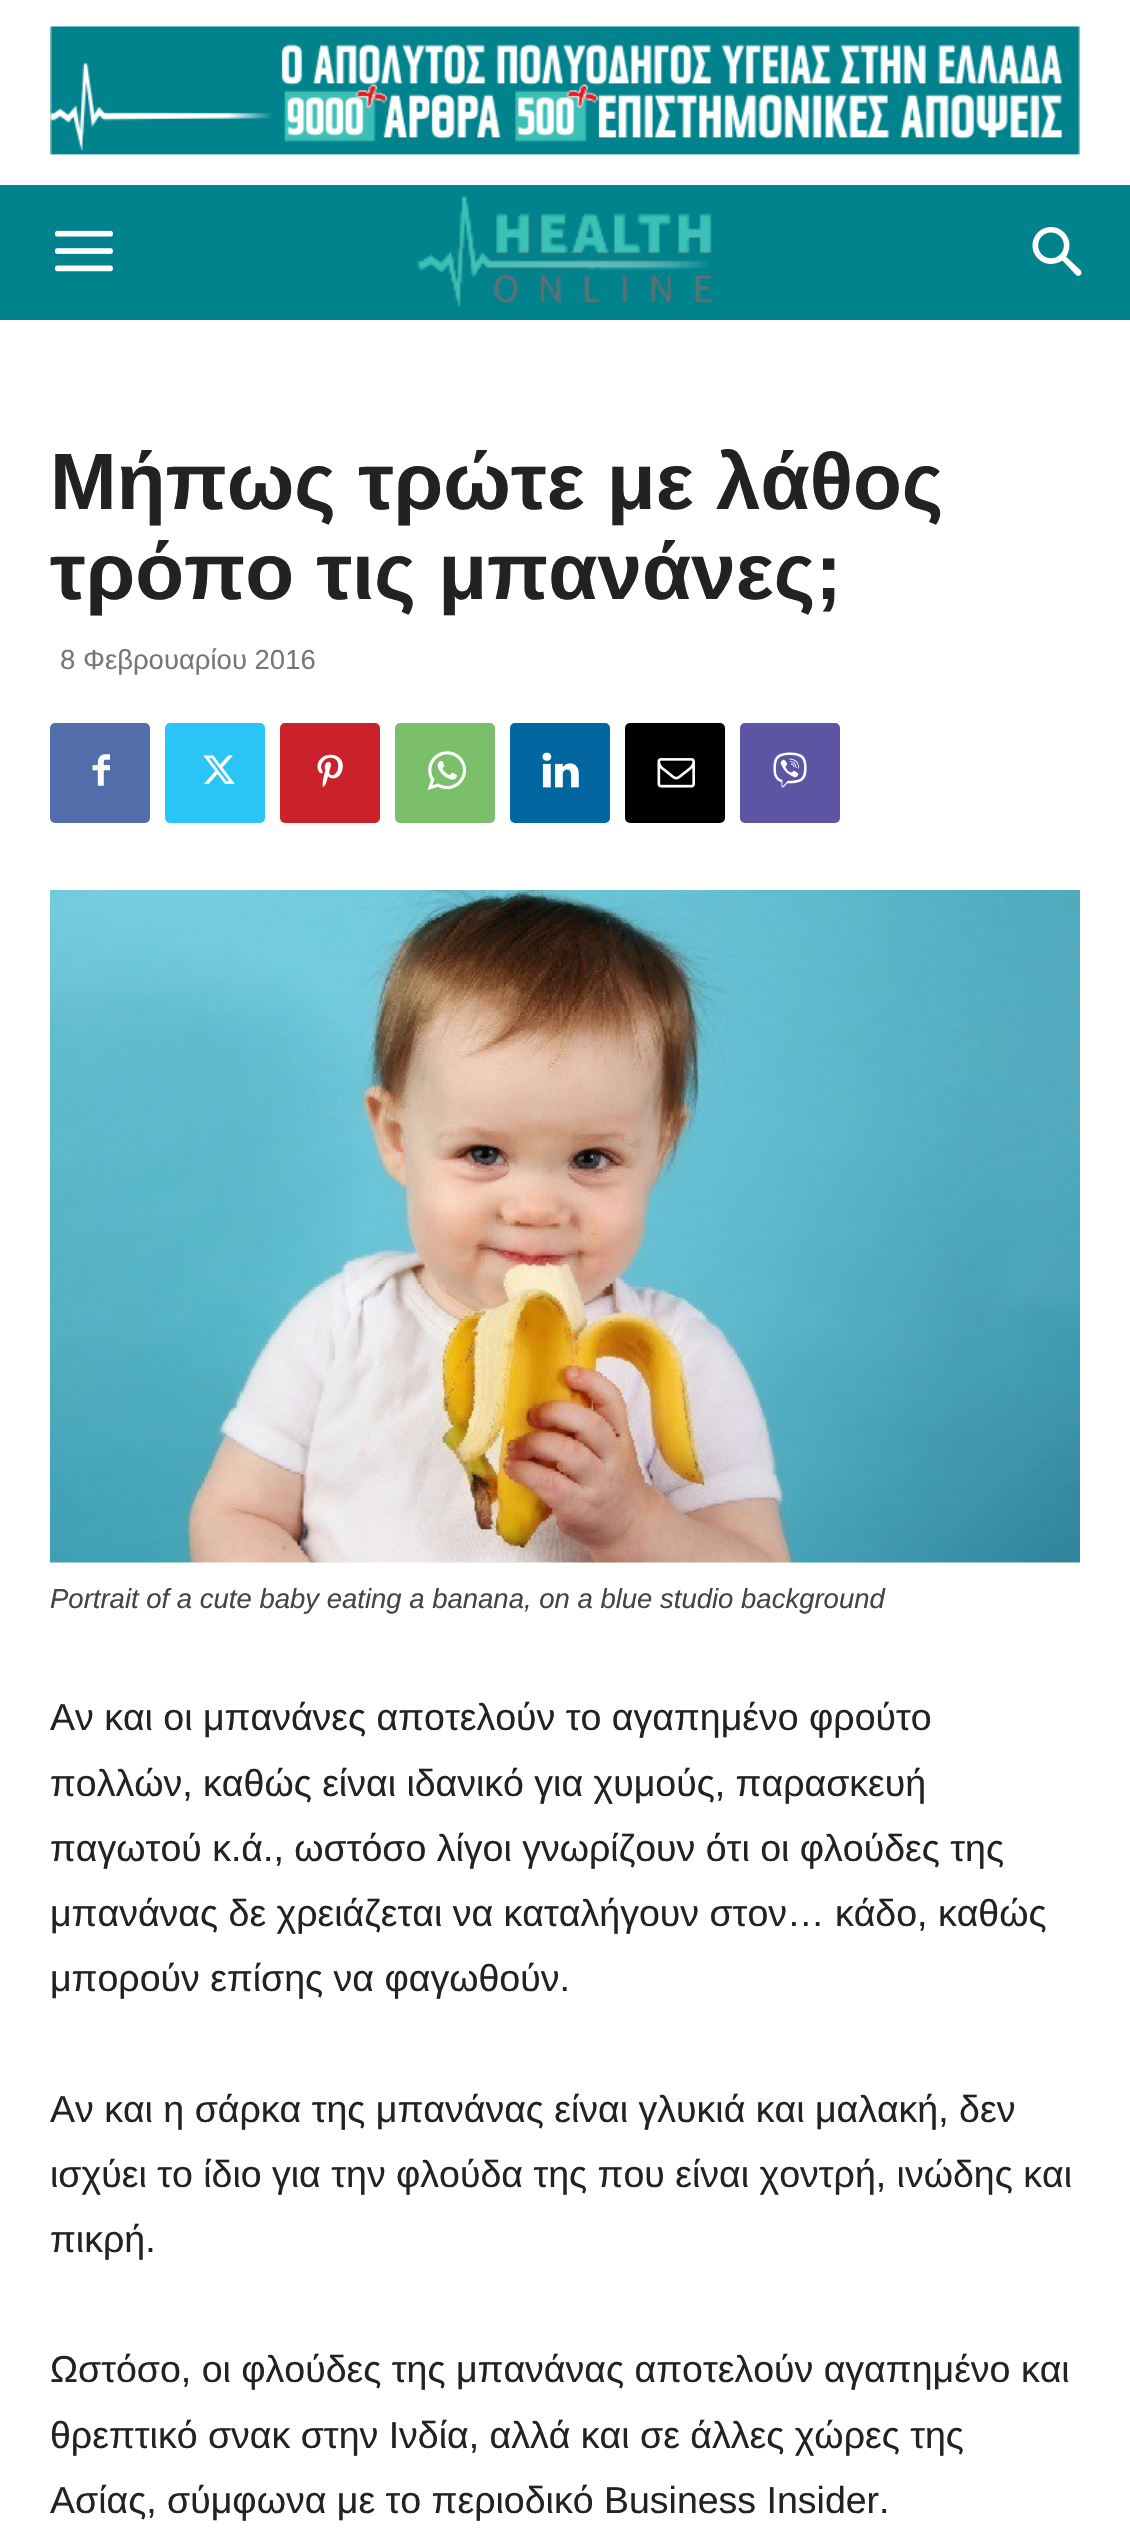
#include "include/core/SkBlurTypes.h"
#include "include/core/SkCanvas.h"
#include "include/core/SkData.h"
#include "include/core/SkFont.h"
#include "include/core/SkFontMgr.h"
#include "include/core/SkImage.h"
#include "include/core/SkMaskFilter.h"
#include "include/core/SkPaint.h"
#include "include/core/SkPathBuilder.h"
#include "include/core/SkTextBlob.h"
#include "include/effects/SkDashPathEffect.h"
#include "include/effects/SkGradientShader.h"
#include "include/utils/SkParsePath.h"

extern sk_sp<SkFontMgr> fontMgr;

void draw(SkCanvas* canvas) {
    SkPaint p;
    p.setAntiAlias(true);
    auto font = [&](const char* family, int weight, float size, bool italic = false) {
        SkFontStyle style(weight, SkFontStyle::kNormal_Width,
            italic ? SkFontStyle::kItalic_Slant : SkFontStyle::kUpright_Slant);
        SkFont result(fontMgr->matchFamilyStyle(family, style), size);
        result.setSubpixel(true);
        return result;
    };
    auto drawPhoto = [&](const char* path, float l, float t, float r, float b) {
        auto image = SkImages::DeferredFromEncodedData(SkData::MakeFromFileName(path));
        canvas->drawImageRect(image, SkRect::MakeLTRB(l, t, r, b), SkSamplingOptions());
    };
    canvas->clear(0xFFFFFFFF);
    drawPhoto("media/1.png", 50, 26, 1080, 155);
    p.setColor(0xFF00838D);
    canvas->drawRect(SkRect::MakeLTRB(0, 185, 1130, 320), p);
    drawPhoto("media/2.png", 55, 230, 113, 272);
    drawPhoto("media/3.png", 416, 194, 714, 309);
    drawPhoto("media/4.png", 1032, 227, 1082, 276);
    auto font1 = font("Liberation Sans", 700, 80);
    p.setColor(0xFF222222);
    canvas->drawString("Μήπως τρώτε με λάθος", 50, 509, font1, p);
    canvas->drawString("τρόπο τις μπανάνες;", 50, 599, font1, p);
    auto font2 = font("Liberation Sans", 400, 27.5f);
    p.setColor(0xFF767676);
    canvas->drawString("8 Φεβρουαρίου 2016", 60, 669, font2, p);
    p.setColor(0xFF516EAB);
    canvas->drawRoundRect(SkRect::MakeLTRB(50, 723, 150, 823), 5, 5, p);
    drawPhoto("media/5.png", 92, 754, 110, 786);
    p.setColor(0xFF29C5F6);
    canvas->drawRoundRect(SkRect::MakeLTRB(165, 723, 265, 823), 5, 5, p);
    drawPhoto("media/6.png", 203, 755, 235, 784);
    p.setColor(0xFFCA212A);
    canvas->drawRoundRect(SkRect::MakeLTRB(280, 723, 380, 823), 5, 5, p);
    drawPhoto("media/7.png", 317, 754, 343, 788);
    p.setColor(0xFF7BBF6A);
    canvas->drawRoundRect(SkRect::MakeLTRB(395, 723, 495, 823), 5, 5, p);
    drawPhoto("media/8.png", 427, 751, 467, 790);
    p.setColor(0xFF0266A0);
    canvas->drawRoundRect(SkRect::MakeLTRB(510, 723, 610, 823), 5, 5, p);
    drawPhoto("media/9.png", 542, 752, 579, 788);
    p.setColor(0xFF000000);
    canvas->drawRoundRect(SkRect::MakeLTRB(625, 723, 725, 823), 5, 5, p);
    drawPhoto("media/10.png", 657, 758, 695, 788);
    p.setColor(0xFF5D54A4);
    canvas->drawRoundRect(SkRect::MakeLTRB(740, 723, 840, 823), 5, 5, p);
    drawPhoto("media/11.png", 773, 752, 807, 788);
    drawPhoto("media/12.png", 50, 890, 1080, 1563);
    auto font3 = font("Liberation Sans", 400, 27.5f, true);
    p.setColor(0xFF444444);
    canvas->drawString("Portrait of a cute baby eating a banana, on a blue studio background", 50, 1608, font3, p);
    auto font4 = font("Liberation Sans", 400, 37.5f);
    p.setColor(0xFF222222);
    {
        const struct { const char* s; float x, y; } items[] = {
            {"Αν και οι μπανάνες αποτελούν το αγαπημένο φρούτο", 50, 1730},
            {"πολλών, καθώς είναι ιδανικό για χυμούς, παρασκευή", 50, 1796},
            {"παγωτού κ.ά., ωστόσο λίγοι γνωρίζουν ότι οι φλούδες της", 50, 1861},
            {"μπανάνας δε χρειάζεται να καταλήγουν στον… κάδο, καθώς", 50, 1926},
            {"μπορούν επίσης να φαγωθούν.", 50, 1991},
            {"Αν και η σάρκα της μπανάνας είναι γλυκιά και μαλακή, δεν", 50, 2122},
            {"ισχύει το ίδιο για την φλούδα της που είναι χοντρή, ινώδης και", 50, 2187},
            {"πικρή.", 50, 2252},
            {"Ωστόσο, οι φλούδες της μπανάνας αποτελούν αγαπημένο και", 50, 2382},
            {"θρεπτικό σνακ στην Ινδία, αλλά και σε άλλες χώρες της", 50, 2448},
            {"Ασίας, σύμφωνα με το περιοδικό Business Insider.", 50, 2513},
        };
        for (auto [s, x, y] : items) {
            canvas->drawString(s, x, y, font4, p);
        }
    }
}
